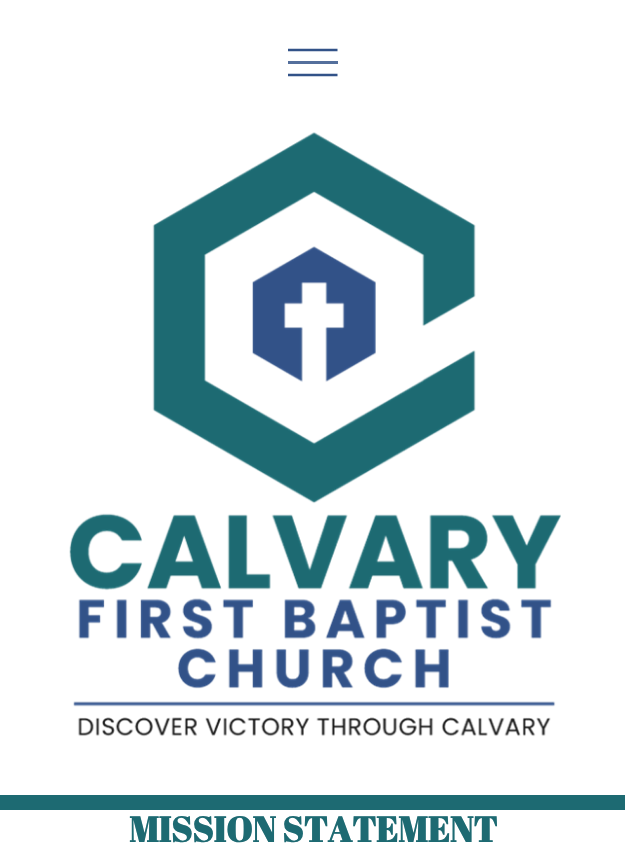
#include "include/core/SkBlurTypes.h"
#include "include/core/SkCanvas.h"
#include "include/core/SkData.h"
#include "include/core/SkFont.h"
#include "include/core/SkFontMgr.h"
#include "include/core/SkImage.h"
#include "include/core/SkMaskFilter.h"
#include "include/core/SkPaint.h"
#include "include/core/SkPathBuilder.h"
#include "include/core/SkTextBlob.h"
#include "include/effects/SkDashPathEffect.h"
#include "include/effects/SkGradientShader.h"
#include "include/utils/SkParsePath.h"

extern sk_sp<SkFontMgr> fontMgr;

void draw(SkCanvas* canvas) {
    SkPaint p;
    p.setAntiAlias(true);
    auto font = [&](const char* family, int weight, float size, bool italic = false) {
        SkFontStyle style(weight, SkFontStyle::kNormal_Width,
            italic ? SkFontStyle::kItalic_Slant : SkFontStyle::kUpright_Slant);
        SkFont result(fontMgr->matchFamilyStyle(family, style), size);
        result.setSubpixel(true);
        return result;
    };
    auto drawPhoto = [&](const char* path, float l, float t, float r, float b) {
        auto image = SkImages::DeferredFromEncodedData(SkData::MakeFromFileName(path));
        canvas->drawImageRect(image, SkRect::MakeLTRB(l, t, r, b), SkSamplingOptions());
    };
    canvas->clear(0xFFFFFFFF);
    canvas->save();
    canvas->clipRect(SkRect::MakeLTRB(288, 46, 338, 78));
    p.setStyle(SkPaint::kStroke_Style);
    p.setStrokeWidth(2.5f);
    p.setColor(0xFF325288);
    canvas->drawPath(SkPathBuilder().moveTo(287.5f, 50).lineTo(337.5f, 50).detach(), p);
    canvas->restore();
    p.setStyle(SkPaint::kFill_Style);
    p.setColor(0xFF546F9C);
    canvas->drawRect(SkRect::MakeLTRB(288, 61, 338, 64), p);
    canvas->save();
    canvas->clipRect(SkRect::MakeLTRB(288, 46, 338, 78));
    p.setStyle(SkPaint::kStroke_Style);
    p.setColor(0xFF325288);
    canvas->drawPath(SkPathBuilder().moveTo(287.5f, 75).lineTo(337.5f, 75).detach(), p);
    canvas->restore();
    drawPhoto("media/1.png", 69, 132, 561, 737);
    p.setStyle(SkPaint::kFill_Style);
    p.setColor(0xFF1D6A72);
    canvas->drawRect(SkRect::MakeLTRB(0, 795, 625, 810), p);
    auto font1 = font("Abril Fatface", 700, 35.25f);
    canvas->drawString("MISSION STATEMENT", 129, 842, font1, p);
}
